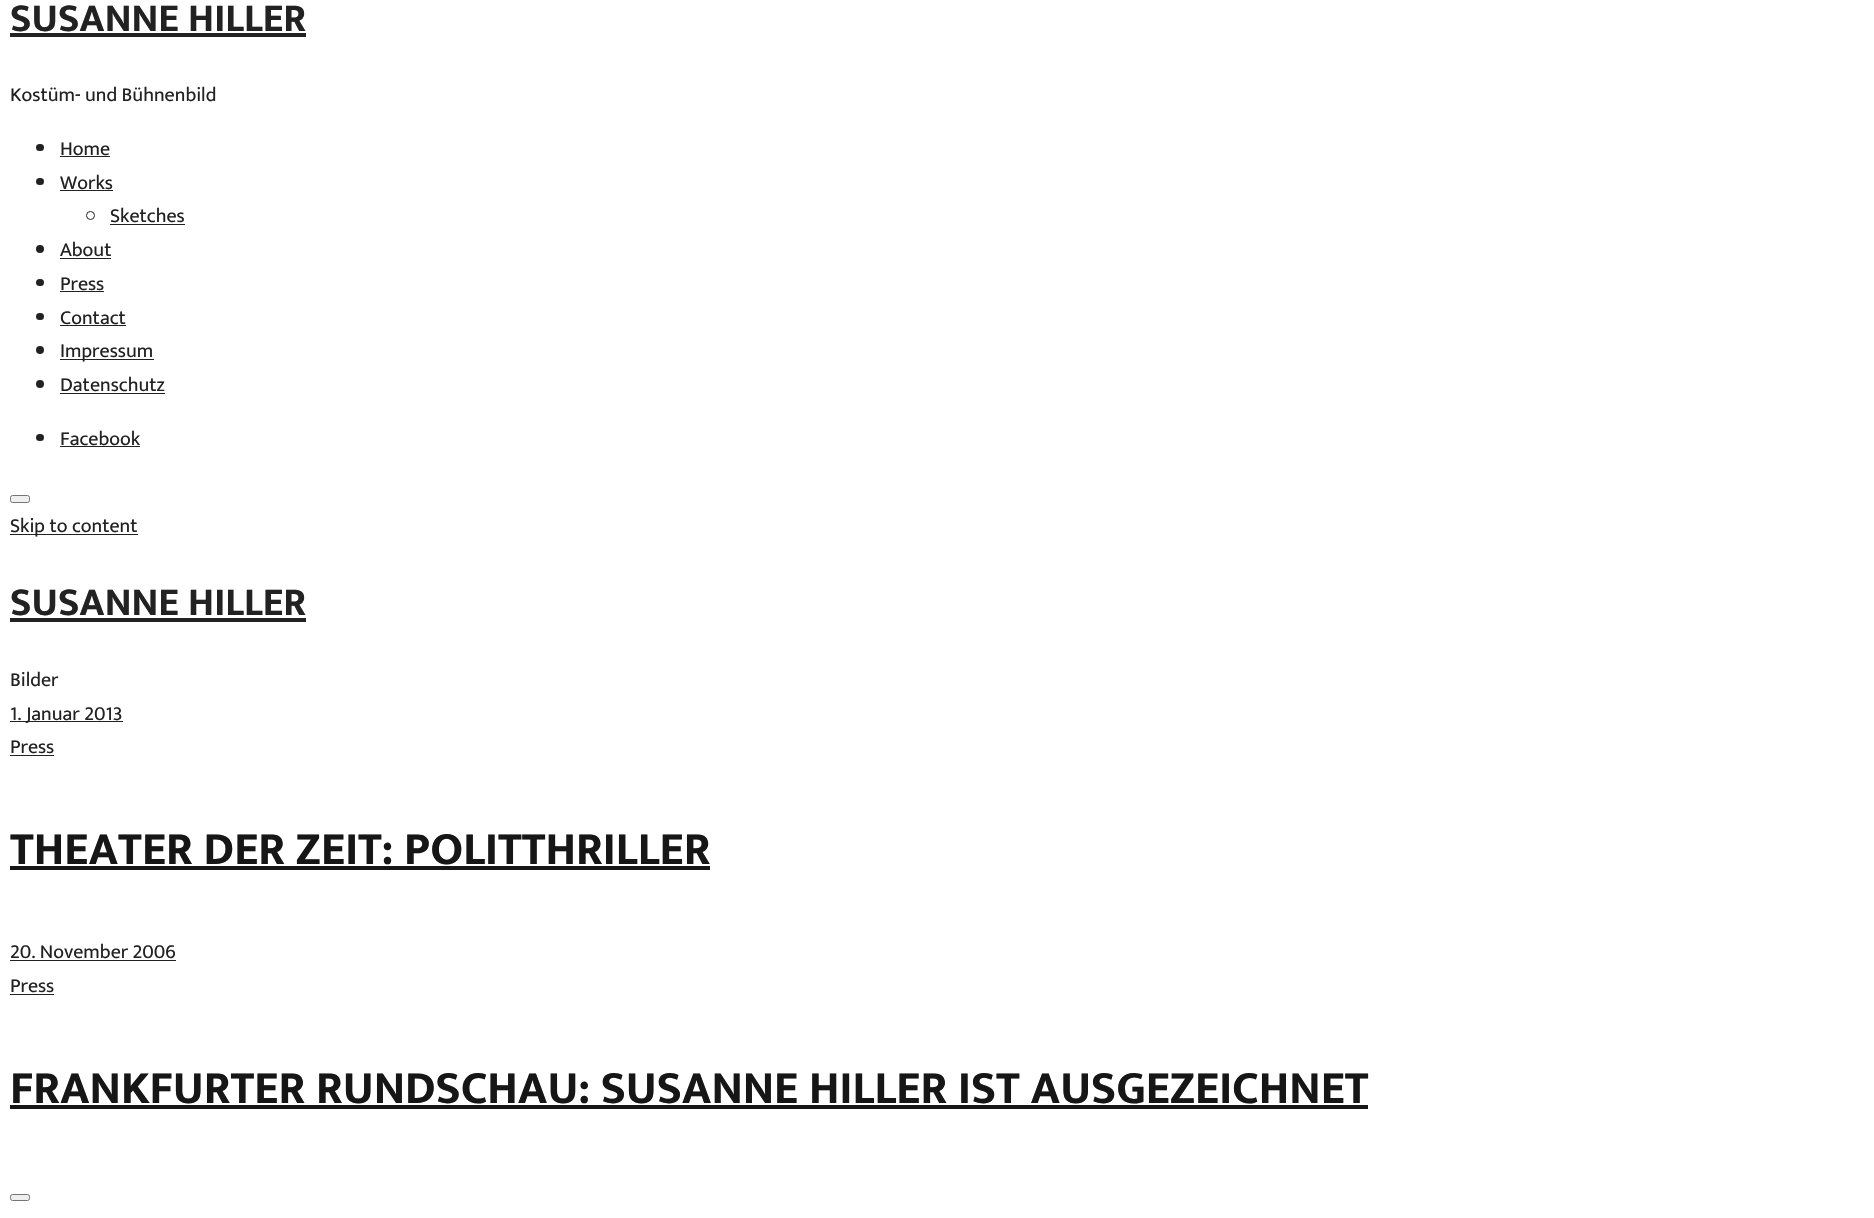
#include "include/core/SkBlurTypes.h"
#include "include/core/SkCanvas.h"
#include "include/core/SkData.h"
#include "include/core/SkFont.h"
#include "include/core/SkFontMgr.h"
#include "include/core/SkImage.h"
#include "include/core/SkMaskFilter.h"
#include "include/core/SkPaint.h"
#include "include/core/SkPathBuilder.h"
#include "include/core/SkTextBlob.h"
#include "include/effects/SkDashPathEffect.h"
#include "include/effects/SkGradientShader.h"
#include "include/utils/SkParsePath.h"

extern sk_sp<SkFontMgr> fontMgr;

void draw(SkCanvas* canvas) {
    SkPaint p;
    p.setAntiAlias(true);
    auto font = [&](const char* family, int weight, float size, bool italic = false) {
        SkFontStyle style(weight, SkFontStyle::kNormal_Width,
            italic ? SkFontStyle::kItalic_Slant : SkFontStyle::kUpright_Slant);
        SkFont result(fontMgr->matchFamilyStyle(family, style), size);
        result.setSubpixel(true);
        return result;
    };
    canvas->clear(0xFFFFFFFF);
    auto font1 = font("Mukta", 700, 40);
    p.setColor(0xFF222222);
    canvas->drawString("SUSANNE HILLER", 10, 31, font1, p);
    canvas->drawRect(SkRect::MakeLTRB(10, 33, 306, 37), p);
    auto font2 = font("Mukta", 400, 20);
    canvas->drawString("Kostüm- und Bühnenbild", 10, 101, font2, p);
    canvas->drawRoundRect(SkRect::MakeLTRB(36, 144, 44, 151), 3.5f, 3.5f, p);
    canvas->drawString("Home", 60, 155, font2, p);
    canvas->drawRect(SkRect::MakeLTRB(60, 156, 110, 157), p);
    canvas->drawRoundRect(SkRect::MakeLTRB(36, 178, 44, 185), 3.5f, 3.5f, p);
    canvas->drawString("Works", 60, 189, font2, p);
    canvas->drawRect(SkRect::MakeLTRB(60, 190, 113, 191), p);
    p.setStyle(SkPaint::kStroke_Style);
    p.setStrokeWidth(1);
    canvas->drawCircle(90.5f, 215.5f, 4, p);
    p.setStyle(SkPaint::kFill_Style);
    canvas->drawString("Sketches", 110, 222, font2, p);
    canvas->drawRect(SkRect::MakeLTRB(110, 224, 185, 225), p);
    canvas->drawCircle(40, 249, 4, p);
    canvas->drawString("About", 60, 256, font2, p);
    canvas->drawRect(SkRect::MakeLTRB(60, 258, 111, 259), p);
    canvas->drawRoundRect(SkRect::MakeLTRB(36, 279, 44, 286), 3.5f, 3.5f, p);
    canvas->drawString("Press", 60, 290, font2, p);
    canvas->drawRect(SkRect::MakeLTRB(60, 291, 104, 292), p);
    canvas->drawRoundRect(SkRect::MakeLTRB(36, 313, 44, 320), 3.5f, 3.5f, p);
    canvas->drawString("Contact", 60, 324, font2, p);
    canvas->drawRect(SkRect::MakeLTRB(60, 325, 126, 326), p);
    canvas->drawCircle(40, 350, 4, p);
    canvas->drawRect(SkRect::MakeLTRB(60, 359, 154, 360), p);
    canvas->drawString("Impressum", 60, 357, font2, p);
    canvas->drawCircle(40, 384, 4, p);
    canvas->drawString("Datenschutz", 60, 391, font2, p);
    canvas->drawRect(SkRect::MakeLTRB(60, 393, 165, 394), p);
    canvas->drawRoundRect(SkRect::MakeLTRB(36, 434, 44, 441), 3.5f, 3.5f, p);
    canvas->drawString("Facebook", 60, 445, font2, p);
    canvas->drawRect(SkRect::MakeLTRB(60, 446, 140, 447), p);
    p.setColor(0xFFEFEFEF);
    canvas->drawRoundRect(SkRect::MakeLTRB(10.5f, 495.5f, 29.5f, 502.5f), 2, 2, p);
    p.setStyle(SkPaint::kStroke_Style);
    p.setColor(0xFF767676);
    canvas->drawRoundRect(SkRect::MakeLTRB(10.5f, 495.5f, 29.5f, 502.5f), 2, 2, p);
    p.setStyle(SkPaint::kFill_Style);
    p.setColor(0xFF222222);
    canvas->drawRect(SkRect::MakeLTRB(10, 534, 138, 535), p);
    canvas->drawString("Skip to content", 10, 532, font2, p);
    canvas->drawString("SUSANNE HILLER", 10, 615, font1, p);
    canvas->drawRect(SkRect::MakeLTRB(10, 618, 306, 622), p);
    canvas->drawString("Bilder", 10, 686, font2, p);
    canvas->drawRect(SkRect::MakeLTRB(10, 721, 123, 722), p);
    canvas->drawString("1. Januar 2013", 10, 720, font2, p);
    canvas->drawString("Press", 10, 753, font2, p);
    canvas->drawRect(SkRect::MakeLTRB(10, 755, 54, 756), p);
    auto font3 = font("Mukta", 700, 46.8f);
    p.setColor(0xFF171617);
    canvas->drawString("THEATER DER ZEIT: POLITTHRILLER", 10, 864, font3, p);
    canvas->drawRect(SkRect::MakeLTRB(10, 866, 710, 870), p);
    p.setColor(0xFF222222);
    canvas->drawString("20. November 2006", 10, 958, font2, p);
    canvas->drawRect(SkRect::MakeLTRB(10, 960, 176, 961), p);
    canvas->drawString("Press", 10, 992, font2, p);
    canvas->drawRect(SkRect::MakeLTRB(10, 994, 54, 995), p);
    p.setColor(0xFF171617);
    canvas->drawString("FRANKFURTER RUNDSCHAU: SUSANNE HILLER IST AUSGEZEICHNET", 10, 1103, font3, p);
    canvas->drawRect(SkRect::MakeLTRB(10, 1105, 1368, 1109), p);
    p.setColor(0xFFEFEFEF);
    canvas->drawRoundRect(SkRect::MakeLTRB(10.5f, 1194.5f, 29.5f, 1200.5f), 2, 2, p);
    p.setStyle(SkPaint::kStroke_Style);
    p.setColor(0xFF767676);
    canvas->drawRoundRect(SkRect::MakeLTRB(10.5f, 1194.5f, 29.5f, 1200.5f), 2, 2, p);
}
